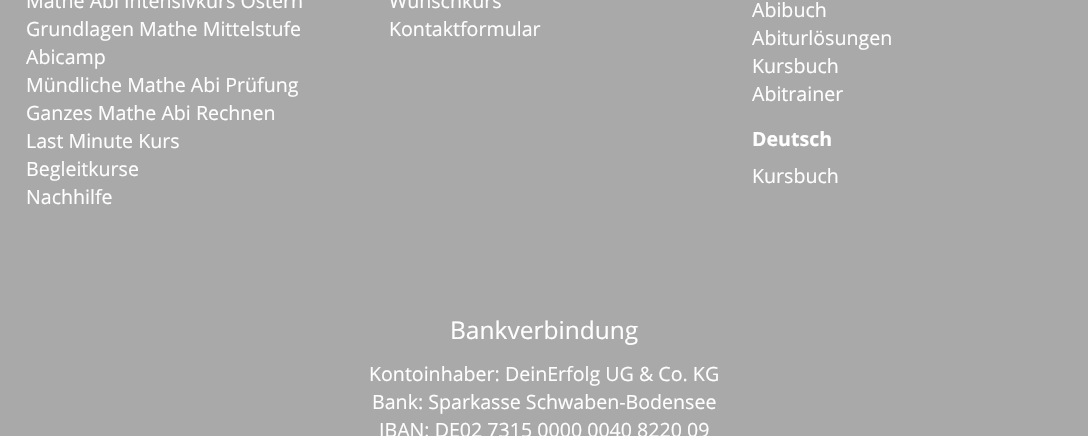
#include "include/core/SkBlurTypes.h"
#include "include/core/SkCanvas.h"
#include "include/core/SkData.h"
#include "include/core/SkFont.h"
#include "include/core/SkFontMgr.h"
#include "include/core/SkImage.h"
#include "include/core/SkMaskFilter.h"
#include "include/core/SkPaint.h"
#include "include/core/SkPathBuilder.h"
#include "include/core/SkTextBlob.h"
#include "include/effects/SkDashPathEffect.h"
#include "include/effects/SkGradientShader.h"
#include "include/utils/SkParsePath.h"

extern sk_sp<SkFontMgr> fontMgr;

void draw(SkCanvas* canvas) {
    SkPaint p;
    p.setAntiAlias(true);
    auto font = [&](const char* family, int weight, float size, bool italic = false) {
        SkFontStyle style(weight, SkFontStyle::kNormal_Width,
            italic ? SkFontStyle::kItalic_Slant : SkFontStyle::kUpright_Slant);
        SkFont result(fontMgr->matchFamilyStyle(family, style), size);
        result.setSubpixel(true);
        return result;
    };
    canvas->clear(0xFFA9A9A9);
    auto font1 = font("Open Sans", 400, 19.6f);
    p.setColor(0xFFFFFFFF);
    {
        const struct { const char* s; float x, y; } items[] = {
            {"Mathe Abi Intensivkurs Ostern", 26, 8},
            {"Grundlagen Mathe Mittelstufe", 26, 36},
            {"Abicamp", 26, 64},
            {"Mündliche Mathe Abi Prüfung", 26, 92},
            {"Ganzes Mathe Abi Rechnen", 26, 120},
            {"Last Minute Kurs", 26, 148},
            {"Begleitkurse", 26, 176},
            {"Nachhilfe", 26, 204},
            {"Wunschkurs", 389, 8},
            {"Kontaktformular", 389, 36},
            {"Abibuch", 752, 17},
            {"Abiturlösungen", 752, 45},
            {"Kursbuch", 752, 73},
            {"Abitrainer", 752, 101},
        };
        for (auto [s, x, y] : items) {
            canvas->drawString(s, x, y, font1, p);
        }
    }
    auto font2 = font("Open Sans", 700, 19.6f);
    canvas->drawString("Deutsch", 752, 146, font2, p);
    canvas->drawString("Kursbuch", 752, 183, font1, p);
    auto font3 = font("Open Sans", 400, 24.5f);
    canvas->drawString("Bankverbindung", 450, 339, font3, p);
    {
        const struct { const char* s; float x, y; } items[] = {
            {"Kontoinhaber: DeinErfolg UG & Co. KG", 369, 381},
            {"Bank: Sparkasse Schwaben-Bodensee", 372, 409},
            {"IBAN: DE02 7315 0000 0040 8220 09", 379, 437},
        };
        for (auto [s, x, y] : items) {
            canvas->drawString(s, x, y, font1, p);
        }
    }
}
